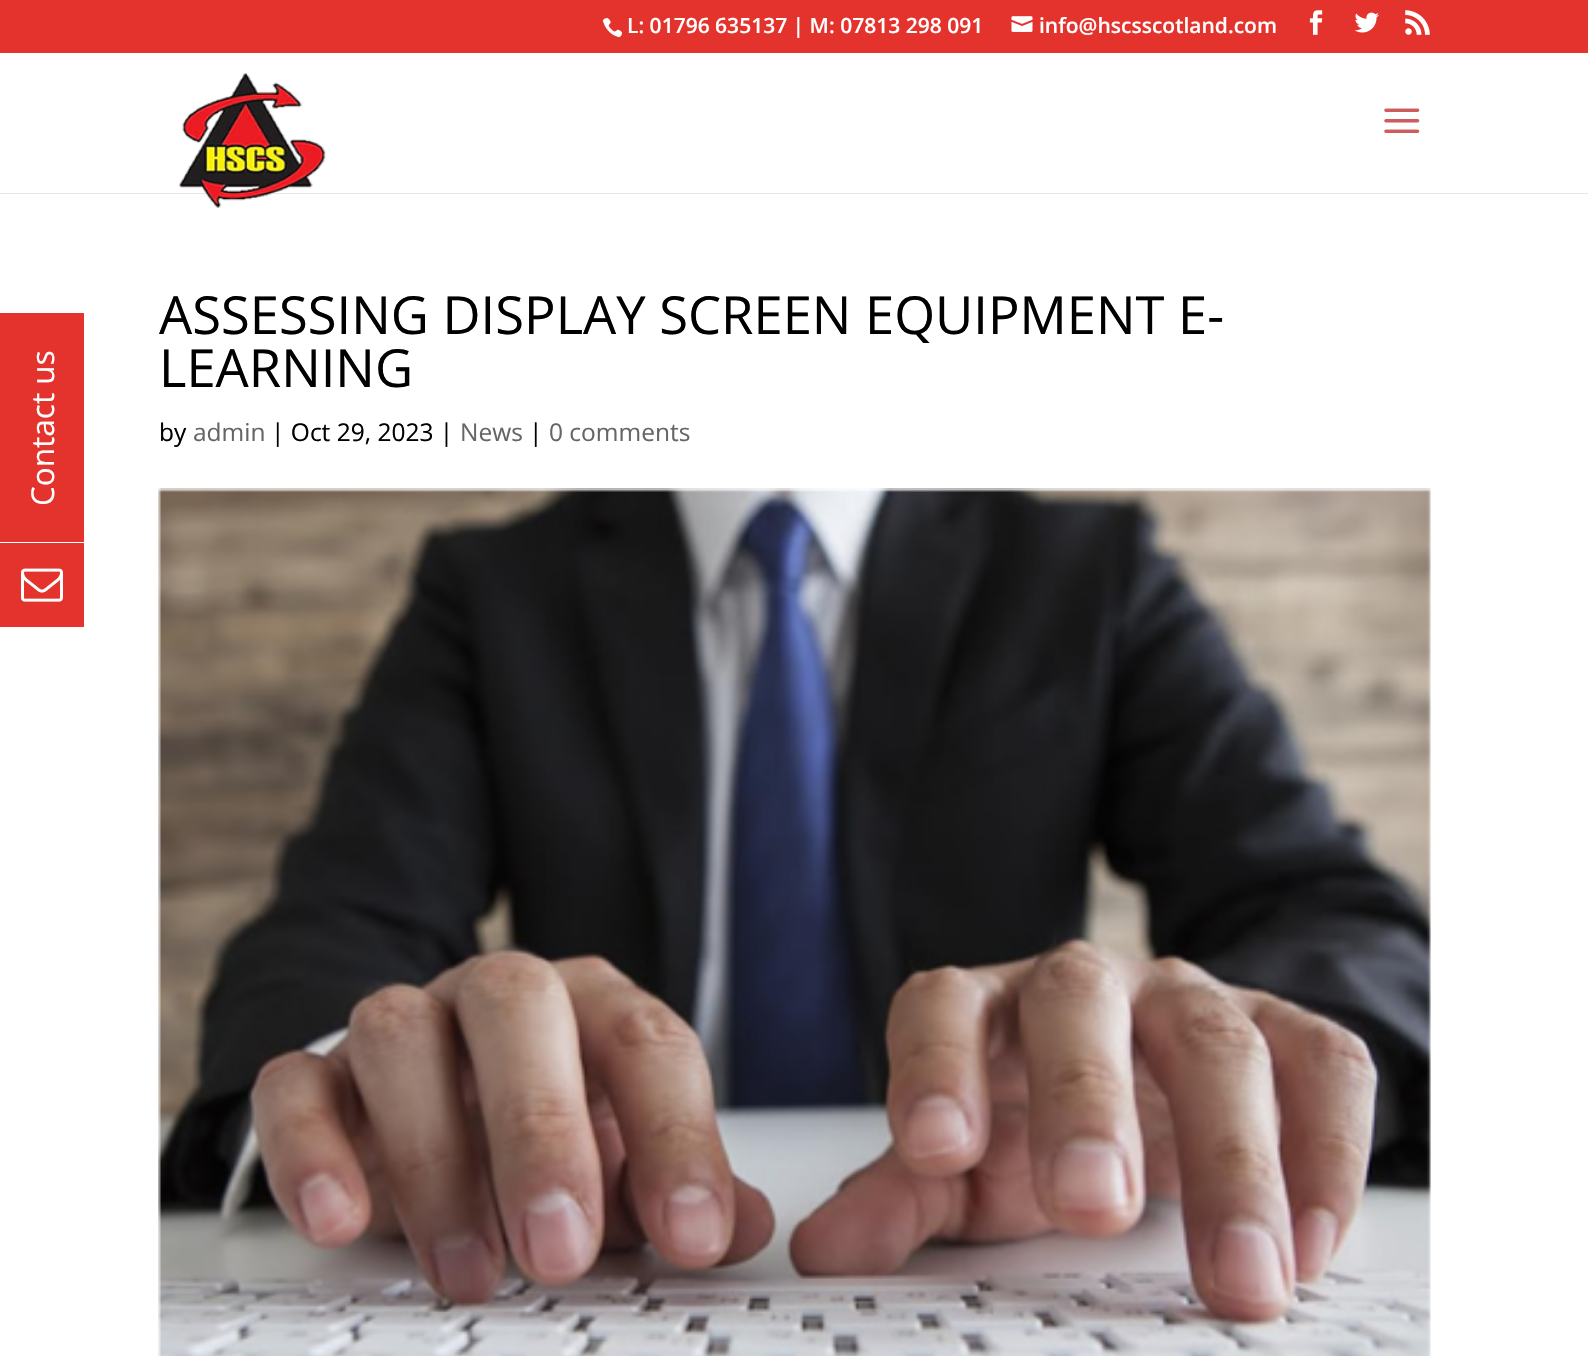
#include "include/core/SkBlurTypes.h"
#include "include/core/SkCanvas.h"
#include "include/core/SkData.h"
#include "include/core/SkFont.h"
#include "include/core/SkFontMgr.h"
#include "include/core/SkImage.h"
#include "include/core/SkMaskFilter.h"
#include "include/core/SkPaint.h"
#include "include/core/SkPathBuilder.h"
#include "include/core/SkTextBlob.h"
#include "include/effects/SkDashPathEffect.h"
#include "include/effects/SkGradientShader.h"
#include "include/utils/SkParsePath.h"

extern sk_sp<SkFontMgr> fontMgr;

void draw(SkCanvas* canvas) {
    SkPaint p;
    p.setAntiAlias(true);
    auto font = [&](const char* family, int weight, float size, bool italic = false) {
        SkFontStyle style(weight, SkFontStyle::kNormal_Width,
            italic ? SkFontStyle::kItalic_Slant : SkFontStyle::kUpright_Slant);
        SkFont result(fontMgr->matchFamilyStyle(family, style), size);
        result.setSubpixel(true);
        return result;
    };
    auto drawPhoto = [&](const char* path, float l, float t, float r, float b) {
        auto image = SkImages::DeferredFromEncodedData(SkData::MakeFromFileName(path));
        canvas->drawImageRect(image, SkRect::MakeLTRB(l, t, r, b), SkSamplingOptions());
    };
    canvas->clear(0xFFFFFFFF);
    p.setColor(0xFFE4332D);
    canvas->drawRect(SkRect::MakeLTRB(0, 313, 84, 542), p);
    auto font1 = font("Open Sans", 400, 31.5f);
    p.setColor(0xFFFFFFFF);
    canvas->save();
    canvas->rotate(-90, 54, 506);
    canvas->drawString("Contact us", 54, 506, font1, p);
    canvas->restore();
    p.setColor(0xFFE4332D);
    canvas->drawRect(SkRect::MakeLTRB(0, 543, 84, 627), p);
    drawPhoto("media/1.png", 21, 568, 63, 602);
    canvas->drawRect(SkRect::MakeLTRB(0, 0, 1588, 53), p);
    drawPhoto("media/2.png", 602, 18, 623, 38);
    auto font2 = font("Open Sans", 600, 21);
    p.setColor(0xFFFFFFFF);
    canvas->drawString("L: 01796 635137 | M: 07813 298 091", 627, 33, font2, p);
    drawPhoto("media/3.png", 1011, 16, 1033, 32);
    canvas->drawString("info@hscsscotland.com", 1039, 33, font2, p);
    drawPhoto("media/4.png", 1309, 10, 1323, 35);
    drawPhoto("media/5.png", 1354, 12, 1379, 33);
    drawPhoto("media/6.png", 1405, 10, 1430, 35);
    p.setColor(0xFFE6E6E6);
    canvas->drawRect(SkRect::MakeLTRB(0, 193, 1588, 194), p);
    drawPhoto("media/7.png", 179, 73, 326, 208);
    drawPhoto("media/8.png", 1384, 108, 1420, 133);
    auto font3 = font("Open Sans", 400, 52.5f);
    p.setColor(0xFF000000);
    canvas->drawString("ASSESSING DISPLAY SCREEN EQUIPMENT E-", 159, 334, font3, p);
    canvas->drawString("LEARNING", 159, 387, font3, p);
    auto font4 = font("Open Sans", 400, 24.5f);
    canvas->drawString("by", 159, 441, font4, p);
    p.setColor(0xFF666666);
    canvas->drawString("admin", 193, 441, font4, p);
    p.setColor(0xFF000000);
    canvas->drawString("| Oct 29, 2023 |", 271, 441, font4, p);
    p.setColor(0xFF666666);
    canvas->drawString("News", 460, 441, font4, p);
    p.setColor(0xFF000000);
    canvas->drawString("|", 529, 441, font4, p);
    p.setColor(0xFF666666);
    canvas->drawString("0 comments", 549, 441, font4, p);
    drawPhoto("media/9.png", 158, 488, 1431, 1356);
}
